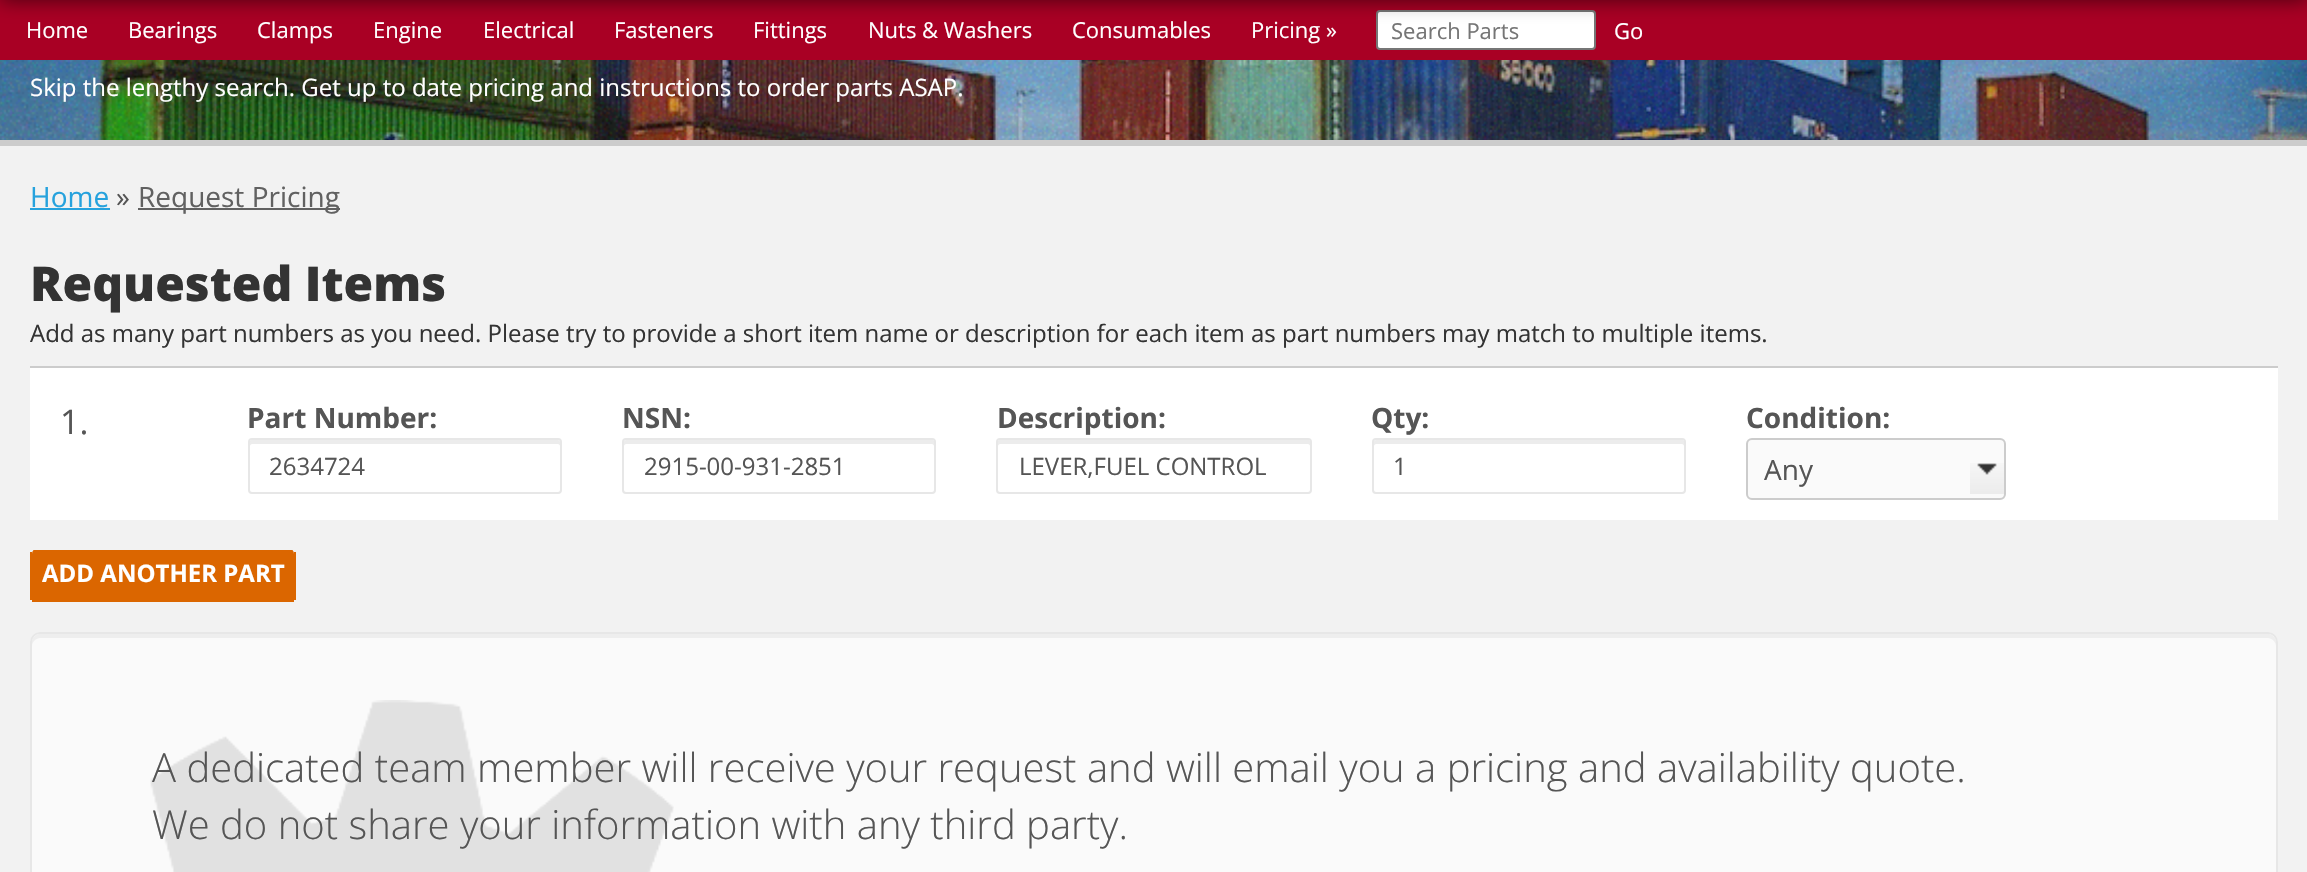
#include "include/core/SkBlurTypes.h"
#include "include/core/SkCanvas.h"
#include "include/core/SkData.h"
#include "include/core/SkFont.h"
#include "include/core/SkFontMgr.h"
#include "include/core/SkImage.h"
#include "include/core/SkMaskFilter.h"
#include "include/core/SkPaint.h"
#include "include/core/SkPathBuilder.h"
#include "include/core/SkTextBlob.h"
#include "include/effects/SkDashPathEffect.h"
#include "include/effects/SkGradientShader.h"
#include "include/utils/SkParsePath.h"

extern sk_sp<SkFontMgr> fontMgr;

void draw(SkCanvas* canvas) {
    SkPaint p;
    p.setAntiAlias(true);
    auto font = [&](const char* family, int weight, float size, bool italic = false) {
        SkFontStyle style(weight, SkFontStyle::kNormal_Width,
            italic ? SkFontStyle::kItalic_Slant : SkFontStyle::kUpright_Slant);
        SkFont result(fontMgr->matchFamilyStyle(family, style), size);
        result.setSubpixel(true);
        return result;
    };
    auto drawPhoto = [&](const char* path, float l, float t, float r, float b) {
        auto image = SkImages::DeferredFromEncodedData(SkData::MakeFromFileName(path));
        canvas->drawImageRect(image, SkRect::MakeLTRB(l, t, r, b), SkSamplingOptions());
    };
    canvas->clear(0xFFF2F2F2);
    p.setColor(0xFFA90024);
    canvas->drawRect(SkRect::MakeLTRB(0, 0, 2307, 60), p);
    p.setColor(0xFFFFFFFF);
    canvas->drawRoundRect(SkRect::MakeLTRB(1377, 11, 1595, 49), 3, 3, p);
    p.setStyle(SkPaint::kStroke_Style);
    p.setStrokeWidth(2);
    p.setColor(0xFF767676);
    canvas->drawRoundRect(SkRect::MakeLTRB(1377, 11, 1595, 49), 3, 3, p);
    p.setStyle(SkPaint::kFill_Style);
    p.setColor(0x99000000);
    p.setMaskFilter(SkMaskFilter::MakeBlur(kNormal_SkBlurStyle, 10));
    canvas->drawRect(SkRect::MakeLTRB(0, -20, 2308, 0), p);
    p.setMaskFilter(nullptr);
    auto font1 = font("Open Sans", 400, 22);
    p.setColor(0xFFFFFFFF);
    {
        const struct { const char* s; float x, y; } items[] = {
            {"Home", 26, 38},
            {"Bearings", 128, 38},
            {"Clamps", 257, 38},
            {"Engine", 373, 38},
            {"Electrical", 483, 38},
            {"Fasteners", 614, 38},
            {"Fittings", 753, 38},
            {"Nuts & Washers", 868, 38},
            {"Consumables", 1072, 38},
            {"Pricing »", 1251, 38},
        };
        for (auto [s, x, y] : items) {
            canvas->drawString(s, x, y, font1, p);
        }
    }
    p.setColor(0xFF757575);
    canvas->drawString("Search Parts", 1391, 39, font1, p);
    p.setColor(0xFFFFFFFF);
    canvas->drawString("Go", 1614, 39, font1, p);
    drawPhoto("media/1.png", 0, 60, 2307, 140);
    p.setColor(0xFFCCCCCC);
    canvas->drawRect(SkRect::MakeLTRB(0, 140, 2307, 146), p);
    drawPhoto("media/2.png", 0, 60, 2307, 140);
    auto font2 = font("Open Sans", 400, 24);
    p.setColor(0xFFFFFFFF);
    canvas->drawString("Skip the lengthy search. Get up to date pricing and instructions to order parts ASAP.", 30, 96, font2, p);
    auto font3 = font("Open Sans", 400, 28);
    p.setColor(0xFF26A2DD);
    canvas->drawString("Home", 30, 207, font3, p);
    canvas->drawRect(SkRect::MakeLTRB(30, 208, 110, 210), p);
    p.setColor(0xFF555555);
    canvas->drawString("»", 116, 207, font3, p);
    p.setColor(0xFF616161);
    canvas->drawRect(SkRect::MakeLTRB(138, 208, 340, 210), p);
    canvas->drawString("Request Pricing", 138, 207, font3, p);
    auto font4 = font("Open Sans", 800, 48);
    p.setColor(0xFF333333);
    canvas->drawString("Requested Items", 30, 301, font4, p);
    canvas->drawString("Add as many part numbers as you need. Please try to provide a short item name or description for each item as part numbers may match to multiple items.", 30, 342, font2, p);
    p.setColor(0xFFFFFFFF);
    canvas->drawRect(SkRect::MakeLTRB(30, 368, 2278, 520), p);
    p.setColor(0xFFCCCCCC);
    canvas->drawRect(SkRect::MakeLTRB(30, 366, 2278, 368), p);
    auto font5 = font("Open Sans", 400, 34);
    p.setColor(0xFF555555);
    canvas->drawString("1.", 60, 434, font5, p);
    auto font6 = font("Open Sans", 700, 28);
    canvas->drawString("Part Number:", 247, 428, font6, p);
    p.setColor(0xFFECECEC);
    canvas->drawPath(SkPathBuilder().moveTo(252, 444).lineTo(558, 444).cubicTo(559, 444, 560, 445, 560, 446).cubicTo(560, 444, 561, 441, 558, 440).lineTo(252, 440).cubicTo(249, 440, 250, 444, 250, 446).cubicTo(250, 445, 251, 444, 252, 444).close().detach(), p);
    p.setStyle(SkPaint::kStroke_Style);
    p.setColor(0xFFE7E7E7);
    canvas->drawRoundRect(SkRect::MakeLTRB(249, 439, 561, 493), 3, 3, p);
    p.setStyle(SkPaint::kFill_Style);
    p.setColor(0xFF555555);
    canvas->drawString("2634724", 269, 475, font2, p);
    canvas->drawString("NSN:", 622, 428, font6, p);
    p.setColor(0xFFECECEC);
    canvas->drawPath(SkPathBuilder().moveTo(626, 444).lineTo(932, 444).cubicTo(933, 444, 934, 445, 934, 446).cubicTo(934, 444, 935, 440, 932, 440).lineTo(626, 440).cubicTo(623, 441, 624, 444, 624, 446).cubicTo(624, 445, 625, 444, 626, 444).close().detach(), p);
    p.setStyle(SkPaint::kStroke_Style);
    p.setColor(0xFFE7E7E7);
    canvas->drawRoundRect(SkRect::MakeLTRB(623, 439, 935, 493), 3, 3, p);
    p.setStyle(SkPaint::kFill_Style);
    p.setColor(0xFF555555);
    canvas->drawString("2915-00-931-2851", 644, 475, font2, p);
    canvas->drawString("Description:", 997, 428, font6, p);
    p.setColor(0xFFECECEC);
    canvas->drawPath(SkPathBuilder().moveTo(1000, 444).lineTo(1308, 444).cubicTo(1309, 444, 1310, 445, 1310, 446).cubicTo(1310, 444, 1311, 440, 1308, 440).lineTo(1000, 440).cubicTo(997, 440, 998, 444, 998, 446).cubicTo(998, 445, 999, 444, 1000, 444).close().detach(), p);
    p.setStyle(SkPaint::kStroke_Style);
    p.setColor(0xFFE7E7E7);
    canvas->drawRoundRect(SkRect::MakeLTRB(997, 439, 1311, 493), 3, 3, p);
    p.setStyle(SkPaint::kFill_Style);
    p.setColor(0xFF555555);
    canvas->drawString("LEVER,FUEL CONTROL", 1019, 475, font2, p);
    canvas->drawString("Qty:", 1371, 428, font6, p);
    p.setColor(0xFFECECEC);
    canvas->drawPath(SkPathBuilder().moveTo(1376, 444).lineTo(1682, 444).cubicTo(1683, 444, 1684, 445, 1684, 446).cubicTo(1684, 444, 1685, 440, 1682, 440).lineTo(1376, 440).cubicTo(1373, 441, 1374, 444, 1374, 446).cubicTo(1374, 445, 1375, 444, 1376, 444).close().detach(), p);
    p.setStyle(SkPaint::kStroke_Style);
    p.setColor(0xFFE7E7E7);
    canvas->drawRoundRect(SkRect::MakeLTRB(1373, 439, 1685, 493), 3, 3, p);
    p.setStyle(SkPaint::kFill_Style);
    p.setColor(0xFF555555);
    canvas->drawString("1", 1393, 475, font2, p);
    canvas->drawString("Condition:", 1746, 428, font6, p);
    p.setColor(0xFFFAFAFA);
    canvas->drawRoundRect(SkRect::MakeLTRB(1746, 438, 2006, 500), 6, 6, p);
    drawPhoto("media/3.png", 1970, 463, 2004, 494);
    p.setStyle(SkPaint::kStroke_Style);
    p.setColor(0xFFCCCCCC);
    canvas->drawRoundRect(SkRect::MakeLTRB(1747, 439, 2005, 499), 5, 5, p);
    p.setStyle(SkPaint::kFill_Style);
    p.setColor(0xFF555555);
    canvas->drawString("Any", 1764, 480, font3, p);
    p.setColor(0xFFDB6600);
    canvas->drawPath(SkPathBuilder().moveTo(34, 550).lineTo(292, 550).cubicTo(293, 550, 294, 552, 294, 554).lineTo(294, 594).lineTo(32, 594).lineTo(32, 554).cubicTo(32, 552, 33, 550, 34, 550).close().detach(), p);
    {
        const struct { float l, t, r, b; SkColor color; } items[] = {
            {294, 552, 296, 600, 0xFFDB6600},
            {32, 594, 294, 602, 0xFFDB6600},
            {30, 552, 32, 600, 0xFFDB6600},
        };
        for (auto [l, t, r, b, color] : items) {
            p.setColor(color);
            canvas->drawRect(SkRect::MakeLTRB(l, t, r, b), p);
        }
    }
    auto font7 = font("Open Sans", 700, 24);
    p.setColor(0xFFFFFFFF);
    canvas->drawString("ADD ANOTHER PART", 42, 582, font7, p);
    p.setColor(0xFFFAFAFA);
    canvas->drawRoundRect(SkRect::MakeLTRB(30, 632, 2278, 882), 10, 10, p);
    p.setColor(0xFFEEEEEE);
    canvas->drawPath(SkPathBuilder().moveTo(40, 638).lineTo(2268, 638).cubicTo(2272, 638, 2276, 642, 2276, 646).lineTo(2276, 642).cubicTo(2276, 638, 2272, 634, 2268, 634).lineTo(40, 634).cubicTo(36, 634, 32, 638, 32, 642).lineTo(32, 646).cubicTo(32, 642, 36, 638, 40, 638).close().detach(), p);
    p.setStyle(SkPaint::kStroke_Style);
    p.setColor(0xFFE7E7E7);
    canvas->drawRoundRect(SkRect::MakeLTRB(31, 633, 2277, 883), 9, 9, p);
    drawPhoto("media/4.png", 150, 700, 674, 872);
    auto font8 = font("Open Sans", 300, 40);
    p.setStyle(SkPaint::kFill_Style);
    p.setColor(0xFF555555);
    canvas->drawString("A dedicated team member will receive your request and will email you a pricing and availability quote.", 152, 782, font8, p);
    canvas->drawString("We do not share your information with any third party.", 152, 839, font8, p);
}
